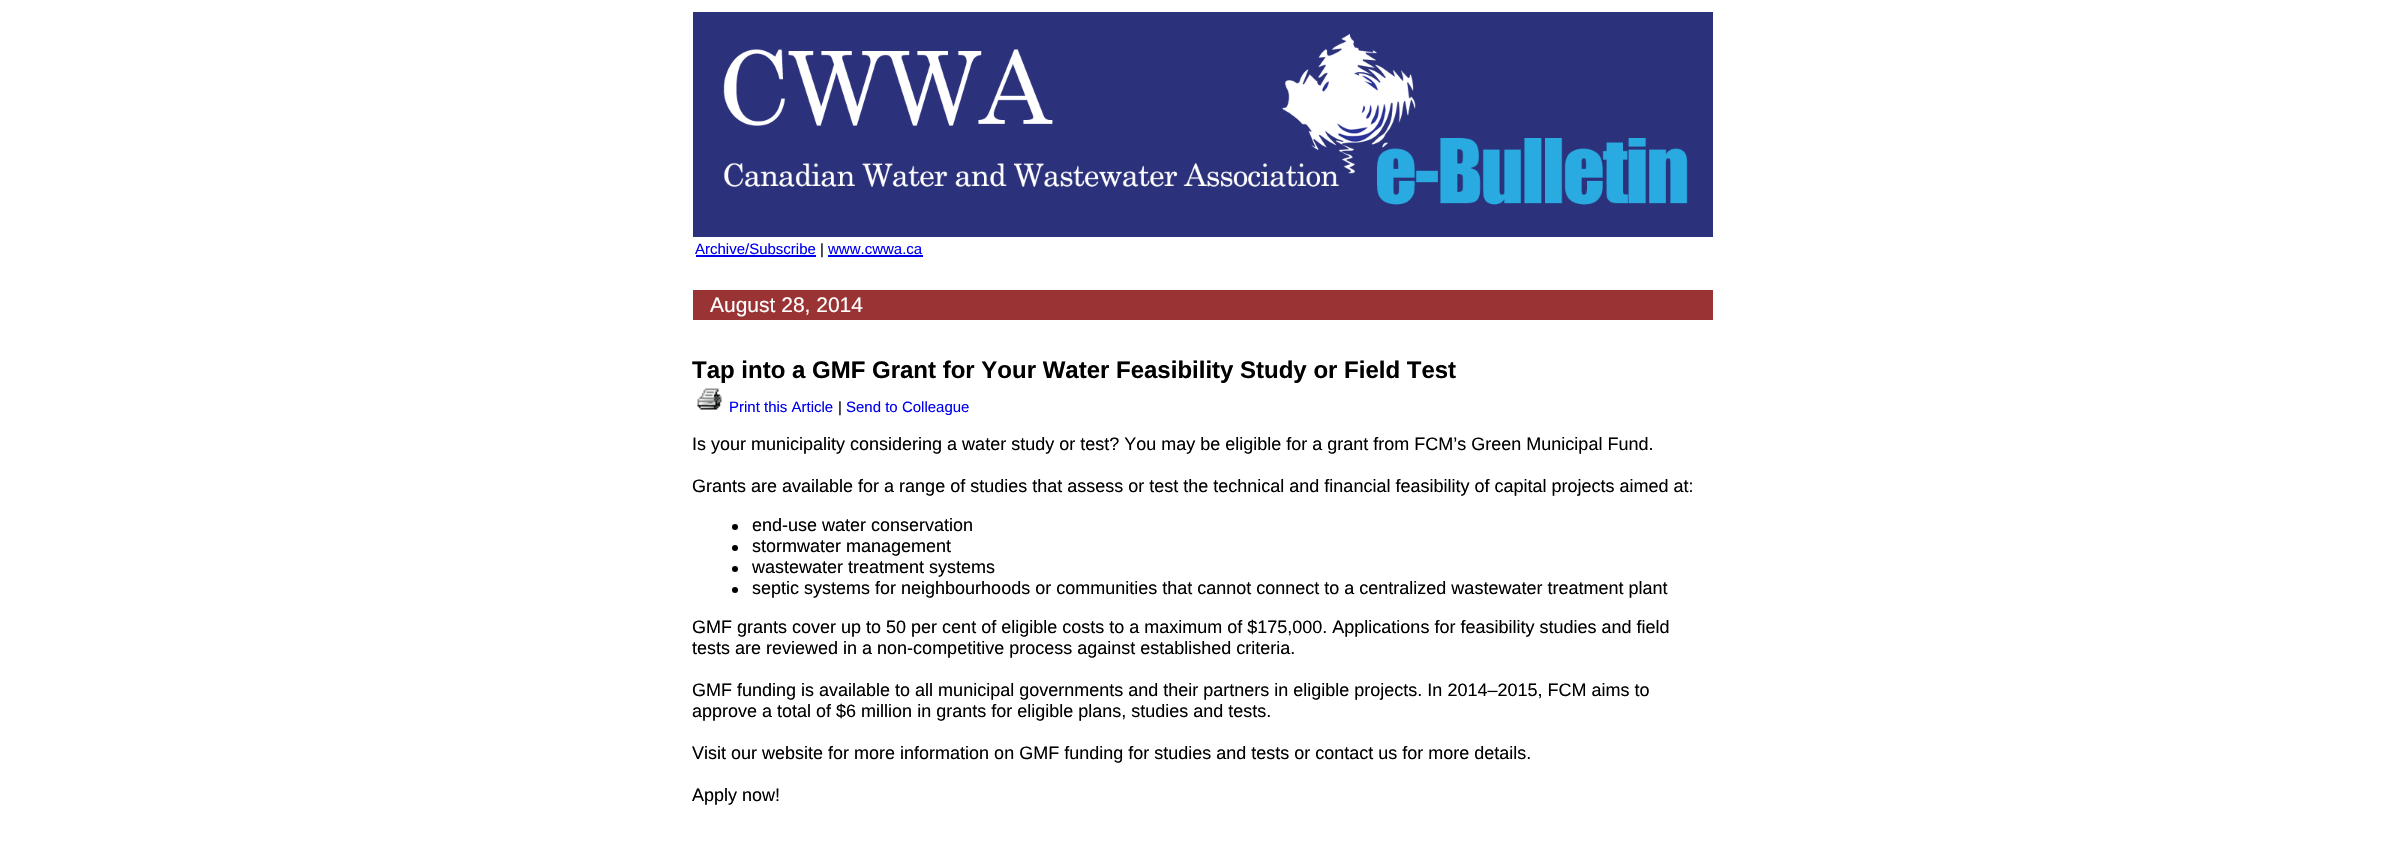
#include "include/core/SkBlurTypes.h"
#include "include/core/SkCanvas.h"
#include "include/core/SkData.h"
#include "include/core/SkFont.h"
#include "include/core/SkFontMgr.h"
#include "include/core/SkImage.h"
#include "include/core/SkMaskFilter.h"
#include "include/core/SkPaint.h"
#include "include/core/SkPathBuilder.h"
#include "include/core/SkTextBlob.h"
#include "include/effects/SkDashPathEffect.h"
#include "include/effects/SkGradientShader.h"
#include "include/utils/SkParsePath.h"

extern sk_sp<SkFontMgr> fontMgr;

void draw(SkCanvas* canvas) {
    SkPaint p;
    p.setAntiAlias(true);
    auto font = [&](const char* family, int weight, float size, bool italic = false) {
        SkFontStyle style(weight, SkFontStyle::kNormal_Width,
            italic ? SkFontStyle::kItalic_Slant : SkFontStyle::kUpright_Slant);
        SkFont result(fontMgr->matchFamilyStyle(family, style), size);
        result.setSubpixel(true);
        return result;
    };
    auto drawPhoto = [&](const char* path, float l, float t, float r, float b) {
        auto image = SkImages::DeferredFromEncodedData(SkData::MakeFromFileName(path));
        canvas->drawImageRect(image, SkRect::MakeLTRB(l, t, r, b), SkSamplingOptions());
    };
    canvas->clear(0xFFFFFFFF);
    drawPhoto("media/1.png", 693, 12, 1713, 237);
    auto font1 = font("Liberation Sans", 400, 15);
    p.setColor(0xFF0000EE);
    canvas->drawString("Archive/Subscribe", 695, 254, font1, p);
    canvas->drawRect(SkRect::MakeLTRB(696, 255, 816, 257), p);
    p.setColor(0xFF000000);
    canvas->drawString("|", 820, 254, font1, p);
    p.setColor(0xFF0000EE);
    canvas->drawString("www.cwwa.ca", 828, 254, font1, p);
    canvas->drawRect(SkRect::MakeLTRB(828, 255, 923, 257), p);
    p.setColor(0xFF9A3334);
    canvas->drawRect(SkRect::MakeLTRB(693, 290, 1713, 320), p);
    auto font2 = font("Liberation Sans", 400, 21);
    p.setColor(0xFFFFFFFF);
    canvas->drawString("August 28, 2014", 710, 312, font2, p);
    auto font3 = font("Liberation Sans", 700, 24);
    p.setColor(0xFF000000);
    canvas->drawString("Tap into a GMF Grant for Your Water Feasibility Study or Field Test", 692, 378, font3, p);
    drawPhoto("media/2.png", 697, 388, 722, 410);
    p.setColor(0xFF0000EE);
    canvas->drawString("Print this Article", 729, 412, font1, p);
    p.setColor(0xFF000000);
    canvas->drawString("|", 838, 412, font1, p);
    p.setColor(0xFF0000EE);
    canvas->drawString("Send to Colleague", 846, 412, font1, p);
    auto font4 = font("Liberation Sans", 400, 18);
    p.setColor(0xFF000000);
    canvas->drawString("Is your municipality considering a water study or test? You may be eligible for a grant from FCM’s Green Municipal Fund.", 692, 450, font4, p);
    canvas->drawString("Grants are available for a range of studies that assess or test the technical and financial feasibility of capital projects aimed at:", 692, 492, font4, p);
    canvas->drawCircle(735, 527, 3, p);
    canvas->drawString("end-use water conservation", 752, 531, font4, p);
    canvas->drawCircle(735, 548, 3, p);
    canvas->drawString("stormwater management", 752, 552, font4, p);
    canvas->drawCircle(735, 569, 3, p);
    canvas->drawString("wastewater treatment systems", 752, 573, font4, p);
    canvas->drawCircle(735, 590, 3, p);
    {
        const struct { const char* s; float x, y; } items[] = {
            {"septic systems for neighbourhoods or communities that cannot connect to a centralized wastewater treatment plant", 752, 594},
            {"GMF grants cover up to 50 per cent of eligible costs to a maximum of $175,000. Applications for feasibility studies and field", 692, 633},
            {"tests are reviewed in a non-competitive process against established criteria.", 692, 654},
            {"GMF funding is available to all municipal governments and their partners in eligible projects. In 2014–2015, FCM aims to", 692, 696},
            {"approve a total of $6 million in grants for eligible plans, studies and tests.", 692, 717},
            {"Visit our website for more information on GMF funding for studies and tests or contact us for more details.", 692, 759},
            {"Apply now!", 692, 801},
        };
        for (auto [s, x, y] : items) {
            canvas->drawString(s, x, y, font4, p);
        }
    }
}
